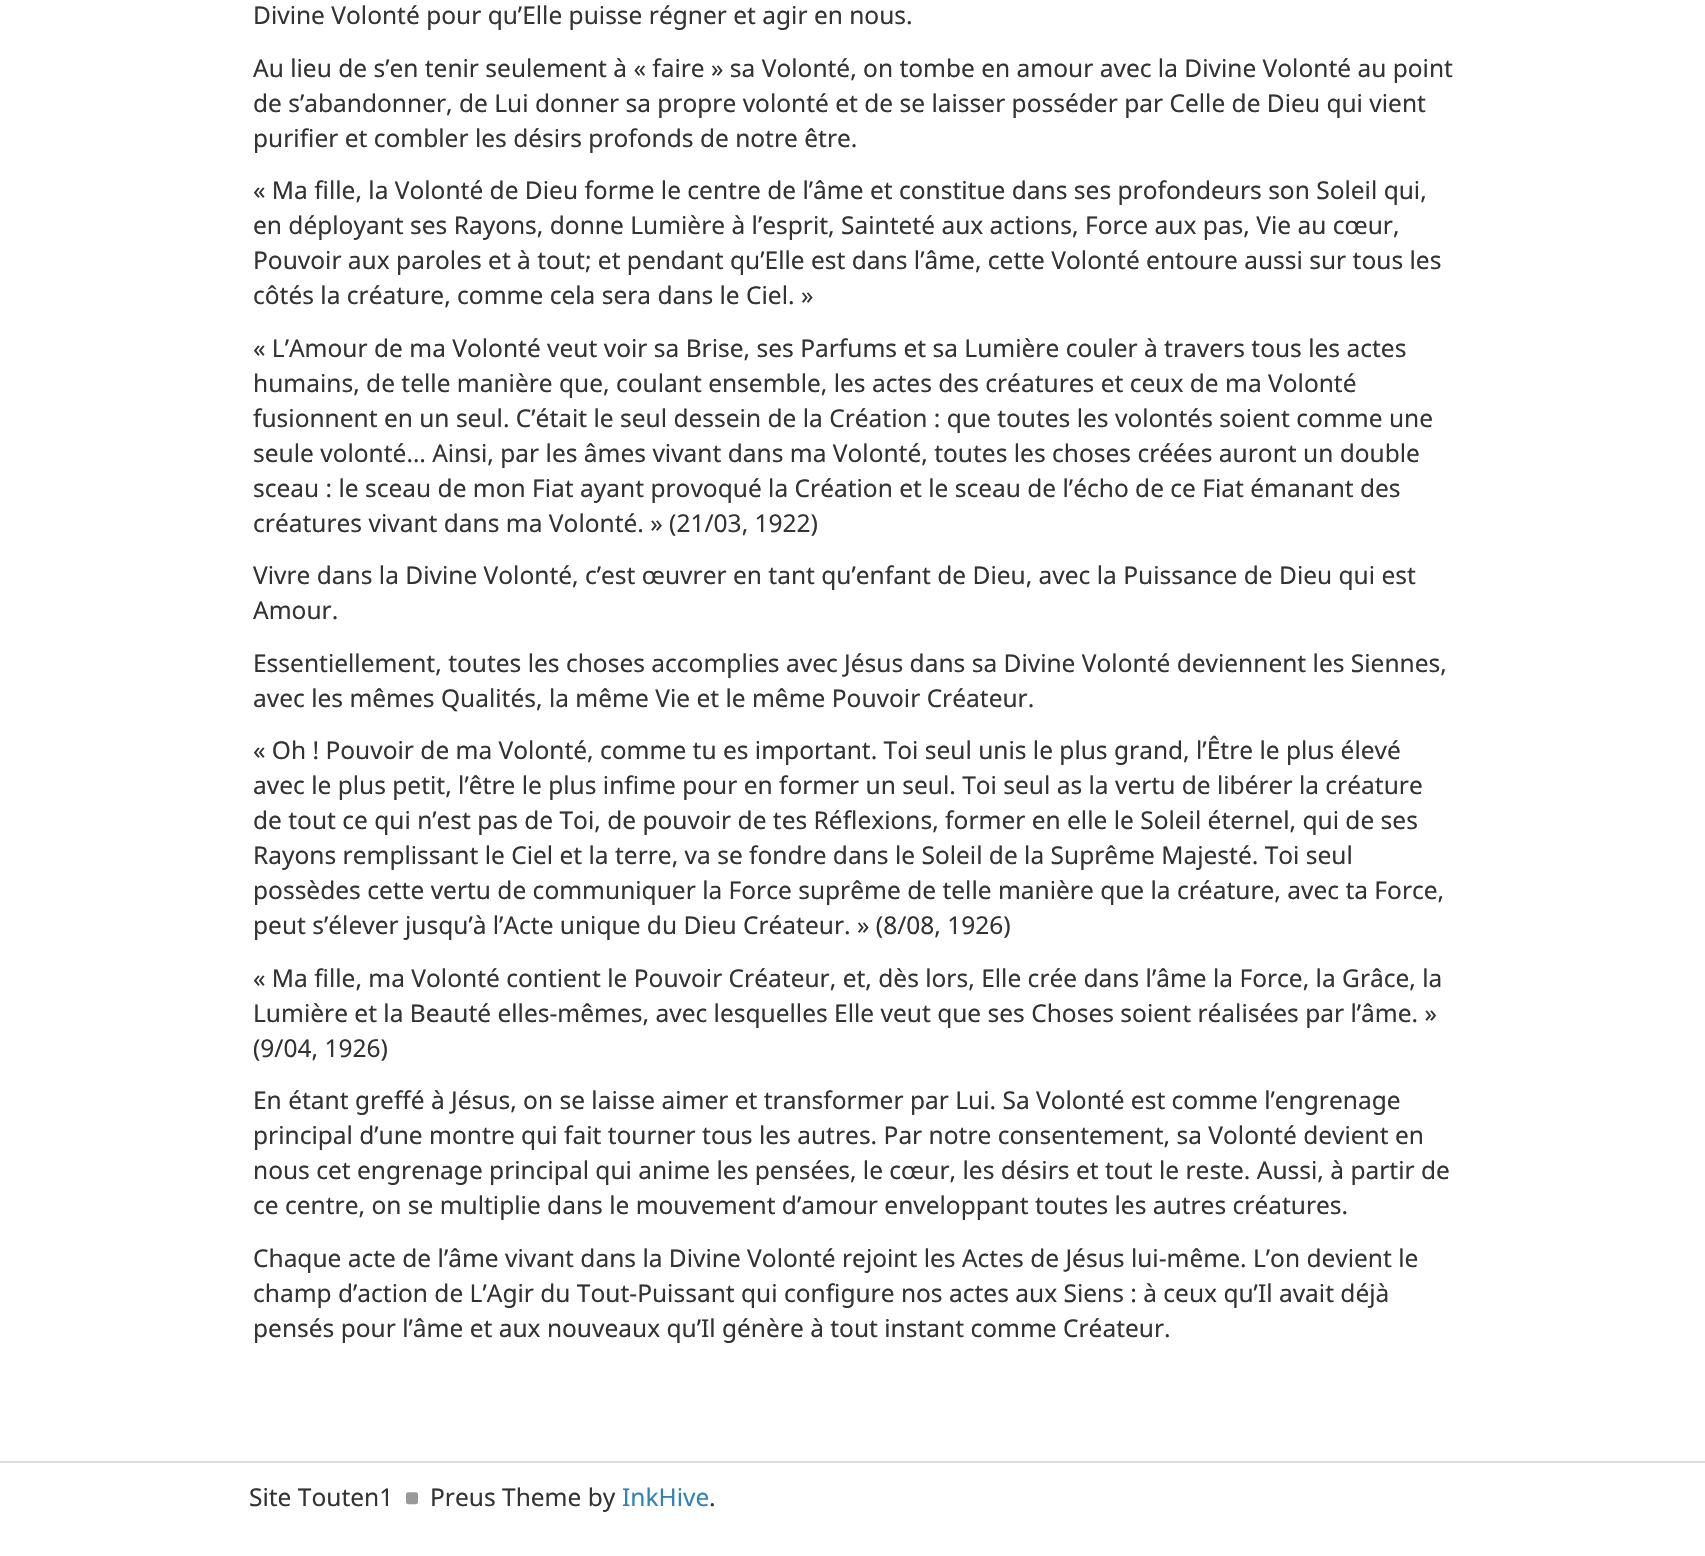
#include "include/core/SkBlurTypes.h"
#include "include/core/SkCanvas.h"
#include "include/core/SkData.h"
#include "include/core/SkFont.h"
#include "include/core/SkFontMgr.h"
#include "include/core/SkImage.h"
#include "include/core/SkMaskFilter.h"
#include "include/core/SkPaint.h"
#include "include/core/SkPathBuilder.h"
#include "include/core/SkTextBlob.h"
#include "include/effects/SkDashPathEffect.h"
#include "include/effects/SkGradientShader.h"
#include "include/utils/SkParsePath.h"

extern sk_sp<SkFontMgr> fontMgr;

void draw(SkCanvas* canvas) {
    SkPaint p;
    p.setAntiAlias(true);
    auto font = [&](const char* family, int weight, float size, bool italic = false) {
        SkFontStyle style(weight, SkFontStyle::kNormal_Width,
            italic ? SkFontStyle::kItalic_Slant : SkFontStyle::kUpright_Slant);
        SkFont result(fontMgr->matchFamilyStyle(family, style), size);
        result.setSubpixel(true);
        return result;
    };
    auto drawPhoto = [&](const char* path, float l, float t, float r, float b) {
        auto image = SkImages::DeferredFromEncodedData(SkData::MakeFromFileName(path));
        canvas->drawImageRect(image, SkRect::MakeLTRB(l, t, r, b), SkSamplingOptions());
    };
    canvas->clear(0xFFFFFFFF);
    auto font1 = font("Noto Sans", 400, 24.5f);
    p.setColor(0xFF333333);
    {
        const struct { const char* s; float x, y; } items[] = {
            {"Divine Volonté pour qu’Elle puisse régner et agir en nous.", 253, 24},
            {"Au lieu de s’en tenir seulement à « faire » sa Volonté, on tombe en amour avec la Divine Volonté au point", 253, 77},
            {"de s’abandonner, de Lui donner sa propre volonté et de se laisser posséder par Celle de Dieu qui vient", 253, 112},
            {"purifier et combler les désirs profonds de notre être.", 253, 147},
            {"« Ma fille, la Volonté de Dieu forme le centre de l’âme et constitue dans ses profondeurs son Soleil qui,", 253, 199},
            {"en déployant ses Rayons, donne Lumière à l’esprit, Sainteté aux actions, Force aux pas, Vie au cœur,", 253, 234},
            {"Pouvoir aux paroles et à tout; et pendant qu’Elle est dans l’âme, cette Volonté entoure aussi sur tous les", 253, 269},
            {"côtés la créature, comme cela sera dans le Ciel. »", 253, 304},
            {"« L’Amour de ma Volonté veut voir sa Brise, ses Parfums et sa Lumière couler à travers tous les actes", 253, 357},
            {"humains, de telle manière que, coulant ensemble, les actes des créatures et ceux de ma Volonté", 253, 392},
            {"fusionnent en un seul. C’était le seul dessein de la Création : que toutes les volontés soient comme une", 253, 427},
            {"seule volonté… Ainsi, par les âmes vivant dans ma Volonté, toutes les choses créées auront un double", 253, 462},
            {"sceau : le sceau de mon Fiat ayant provoqué la Création et le sceau de l’écho de ce Fiat émanant des", 253, 497},
            {"créatures vivant dans ma Volonté. » (21/03, 1922)", 253, 532},
            {"Vivre dans la Divine Volonté, c’est œuvrer en tant qu’enfant de Dieu, avec la Puissance de Dieu qui est", 253, 584},
            {"Amour.", 253, 619},
            {"Essentiellement, toutes les choses accomplies avec Jésus dans sa Divine Volonté deviennent les Siennes,", 253, 672},
            {"avec les mêmes Qualités, la même Vie et le même Pouvoir Créateur.", 253, 707},
            {"« Oh ! Pouvoir de ma Volonté, comme tu es important. Toi seul unis le plus grand, l’Être le plus élevé", 253, 759},
            {"avec le plus petit, l’être le plus infime pour en former un seul. Toi seul as la vertu de libérer la créature", 253, 794},
            {"de tout ce qui n’est pas de Toi, de pouvoir de tes Réflexions, former en elle le Soleil éternel, qui de ses", 253, 829},
            {"Rayons remplissant le Ciel et la terre, va se fondre dans le Soleil de la Suprême Majesté. Toi seul", 253, 864},
            {"possèdes cette vertu de communiquer la Force suprême de telle manière que la créature, avec ta Force,", 253, 899},
            {"peut s’élever jusqu’à l’Acte unique du Dieu Créateur. » (8/08, 1926)", 253, 934},
            {"« Ma fille, ma Volonté contient le Pouvoir Créateur, et, dès lors, Elle crée dans l’âme la Force, la Grâce, la", 253, 987},
            {"Lumière et la Beauté elles-mêmes, avec lesquelles Elle veut que ses Choses soient réalisées par l’âme. »", 253, 1022},
            {"(9/04, 1926)", 253, 1057},
            {"En étant greffé à Jésus, on se laisse aimer et transformer par Lui. Sa Volonté est comme l’engrenage", 253, 1109},
            {"principal d’une montre qui fait tourner tous les autres. Par notre consentement, sa Volonté devient en", 253, 1144},
            {"nous cet engrenage principal qui anime les pensées, le cœur, les désirs et tout le reste. Aussi, à partir de", 253, 1179},
            {"ce centre, on se multiplie dans le mouvement d’amour enveloppant toutes les autres créatures.", 253, 1214},
            {"Chaque acte de l’âme vivant dans la Divine Volonté rejoint les Actes de Jésus lui-même. L’on devient le", 253, 1267},
            {"champ d’action de L’Agir du Tout-Puissant qui configure nos actes aux Siens : à ceux qu’Il avait déjà", 253, 1302},
            {"pensés pour l’âme et aux nouveaux qu’Il génère à tout instant comme Créateur.", 253, 1337},
        };
        for (auto [s, x, y] : items) {
            canvas->drawString(s, x, y, font1, p);
        }
    }
    p.setColor(0xFFDDDDDD);
    canvas->drawRect(SkRect::MakeLTRB(0, 1461, 1705, 1463), p);
    p.setColor(0xFF333333);
    canvas->drawString("Site Touten1", 249, 1506, font1, p);
    drawPhoto("media/1.png", 406, 1492, 418, 1505);
    canvas->drawString("Preus Theme by", 430, 1506, font1, p);
    p.setColor(0xFF3182B8);
    canvas->drawString("InkHive", 622, 1506, font1, p);
    p.setColor(0xFF333333);
    canvas->drawString(".", 709, 1506, font1, p);
}
